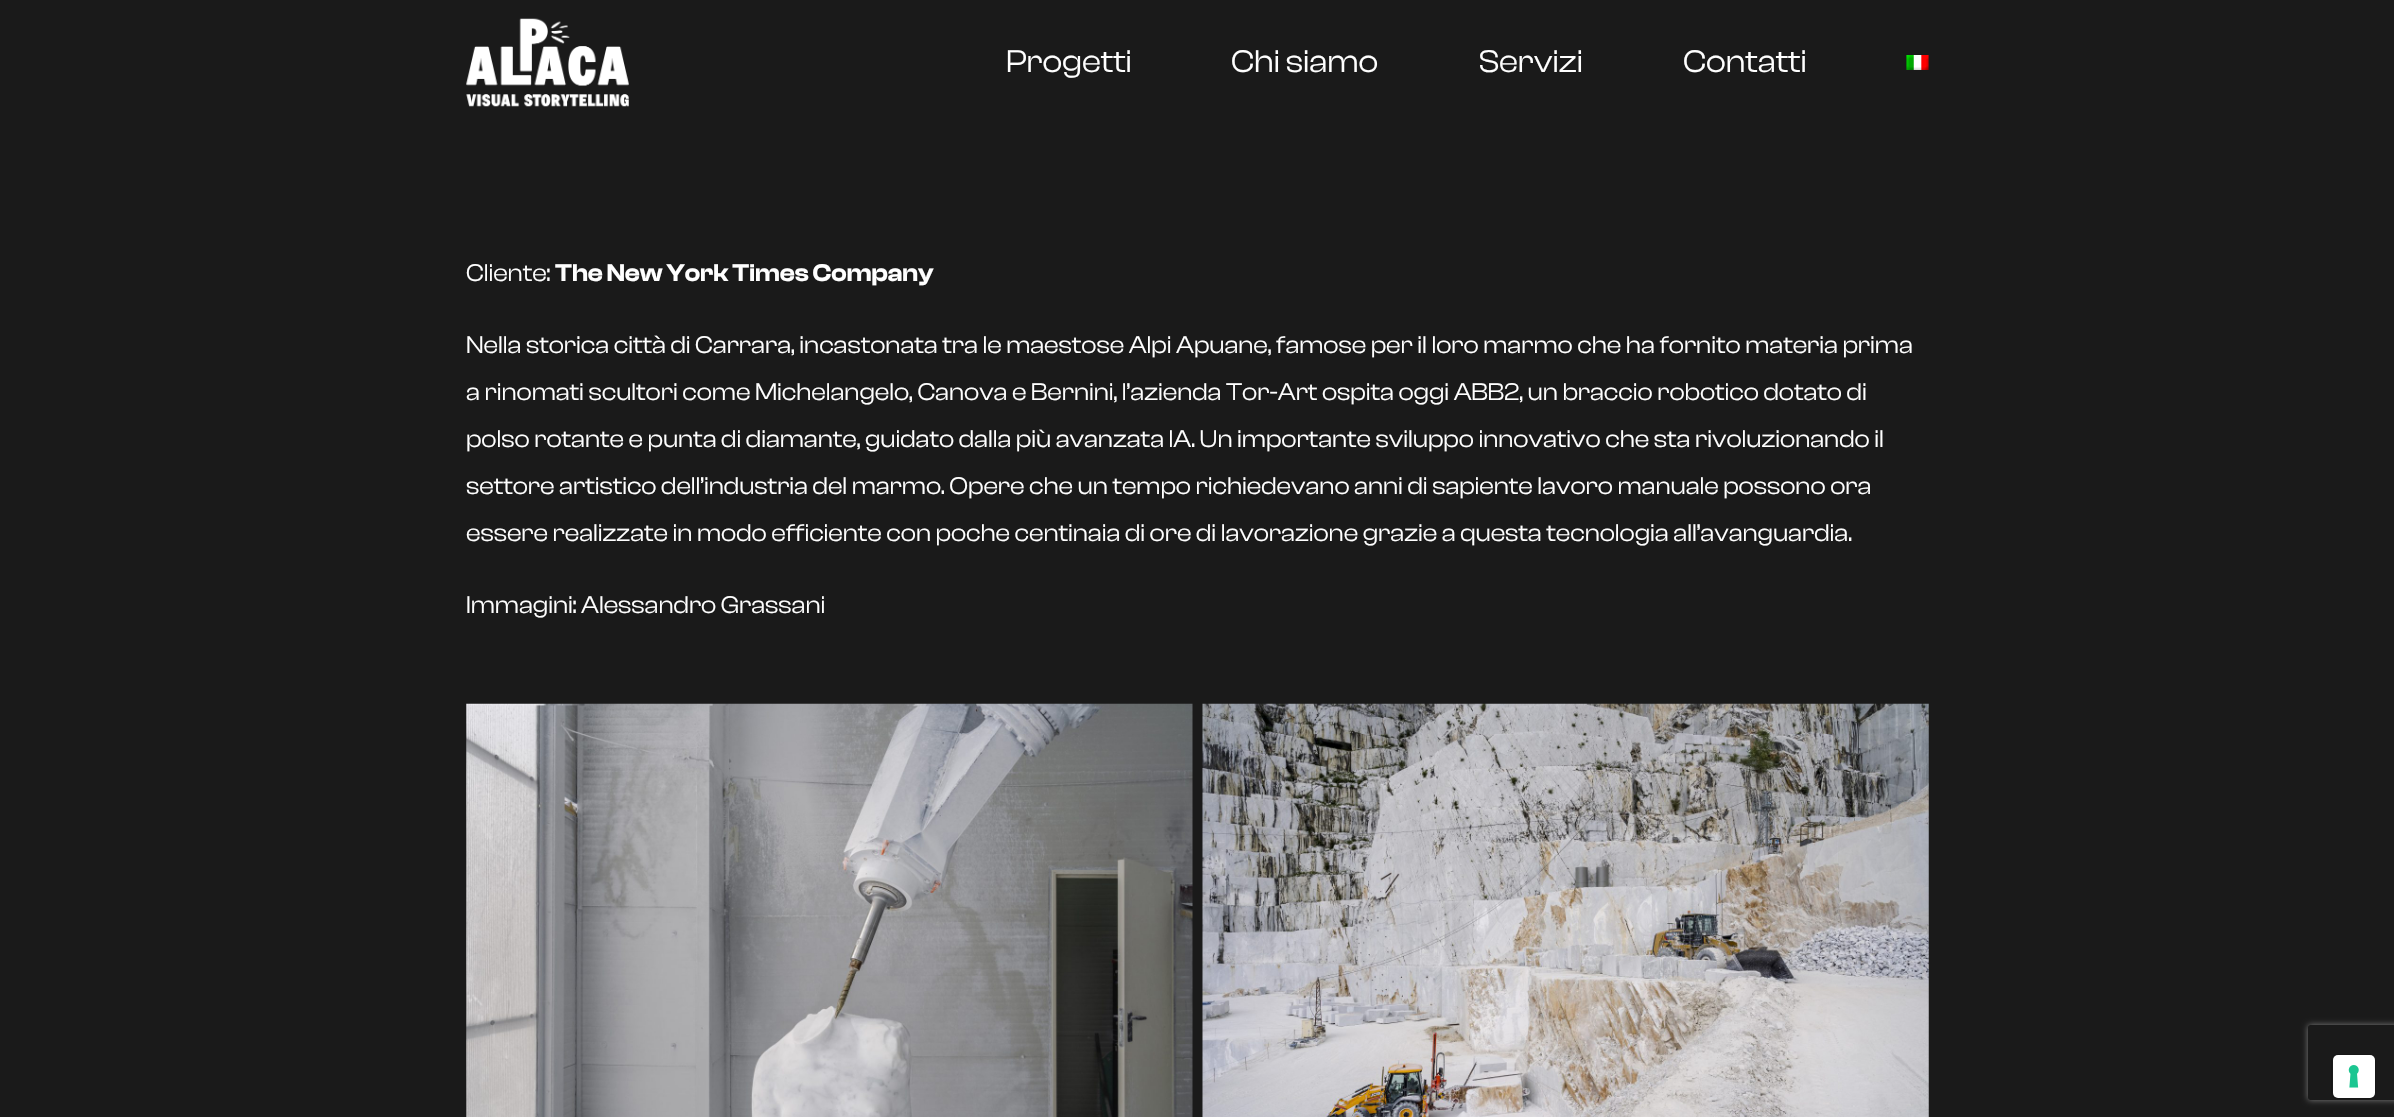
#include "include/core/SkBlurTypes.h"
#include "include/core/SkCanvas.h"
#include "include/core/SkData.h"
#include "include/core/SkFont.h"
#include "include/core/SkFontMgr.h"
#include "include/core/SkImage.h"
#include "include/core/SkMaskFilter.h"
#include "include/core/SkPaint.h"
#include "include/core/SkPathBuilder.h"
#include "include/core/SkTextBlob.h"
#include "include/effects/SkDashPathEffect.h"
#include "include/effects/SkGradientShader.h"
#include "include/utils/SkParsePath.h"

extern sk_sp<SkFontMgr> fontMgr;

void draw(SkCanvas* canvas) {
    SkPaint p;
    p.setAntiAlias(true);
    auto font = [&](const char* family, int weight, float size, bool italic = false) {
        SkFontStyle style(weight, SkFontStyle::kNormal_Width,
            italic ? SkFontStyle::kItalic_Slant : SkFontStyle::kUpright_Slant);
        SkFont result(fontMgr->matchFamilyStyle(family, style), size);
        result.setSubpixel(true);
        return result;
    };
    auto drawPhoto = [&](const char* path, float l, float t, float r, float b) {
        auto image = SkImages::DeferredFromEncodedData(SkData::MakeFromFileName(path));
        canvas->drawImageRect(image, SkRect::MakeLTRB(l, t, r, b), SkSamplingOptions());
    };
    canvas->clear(0xFF1A1A1A);
    drawPhoto("media/1.png", 466, 18, 629, 107);
    auto font1 = font("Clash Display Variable", 400, 32.5f);
    p.setColor(0xFFFFFFFF);
    {
        const struct { const char* s; float x, y; } items[] = {
            {"Progetti", 1006, 72},
            {"Chi siamo", 1231, 72},
            {"Servizi", 1479, 72},
            {"Contatti", 1683, 72},
        };
        for (auto [s, x, y] : items) {
            canvas->drawString(s, x, y, font1, p);
        }
    }
    drawPhoto("media/2.png", 1906, 55, 1929, 70);
    auto font2 = font("Clash Display Variable", 400, 25);
    canvas->drawString("Cliente:", 466, 281, font2, p);
    auto font3 = font("Clash Display Variable", 600, 25);
    canvas->drawString("The New York Times Company", 555, 281, font3, p);
    {
        const struct { const char* s; float x, y; } items[] = {
            {"Nella storica città di Carrara, incastonata tra le maestose Alpi Apuane, famose per il loro marmo che ha fornito materia prima", 466, 353},
            {"a rinomati scultori come Michelangelo, Canova e Bernini, l’azienda Tor-Art ospita oggi ABB2, un braccio robotico dotato di", 466, 400},
            {"polso rotante e punta di diamante, guidato dalla più avanzata IA. Un importante sviluppo innovativo che sta rivoluzionando il", 466, 447},
            {"settore artistico dell’industria del marmo. Opere che un tempo richiedevano anni di sapiente lavoro manuale possono ora", 466, 494},
            {"essere realizzate in modo efficiente con poche centinaia di ore di lavorazione grazie a questa tecnologia all’avanguardia.", 466, 541},
            {"Immagini: Alessandro Grassani", 466, 613},
        };
        for (auto [s, x, y] : items) {
            canvas->drawString(s, x, y, font2, p);
        }
    }
    drawPhoto("media/3.png", 466, 703, 1193, 1117);
    drawPhoto("media/4.png", 1202, 703, 1929, 1117);
    canvas->save();
    canvas->clipPath(SkPathBuilder(SkPathFillType::kEvenOdd).moveTo(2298, 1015).lineTo(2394, 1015).lineTo(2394, 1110).lineTo(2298, 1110).close().moveTo(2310.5f, 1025).lineTo(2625.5f, 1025).cubicTo(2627, 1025, 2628, 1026, 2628, 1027.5f).lineTo(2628, 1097.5f).cubicTo(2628, 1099, 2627, 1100, 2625.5f, 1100).lineTo(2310.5f, 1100).cubicTo(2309, 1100, 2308, 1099, 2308, 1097.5f).lineTo(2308, 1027.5f).cubicTo(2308, 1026, 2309, 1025, 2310.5f, 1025).close().detach(), true);
    p.setColor(0xFF808080);
    p.setMaskFilter(SkMaskFilter::MakeBlur(kNormal_SkBlurStyle, 3));
    canvas->drawRoundRect(SkRect::MakeLTRB(2308, 1025, 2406, 1100), 2.5f, 2.5f, p);
    p.setMaskFilter(nullptr);
    canvas->restore();
    p.setStyle(SkPaint::kStroke_Style);
    p.setStrokeWidth(1);
    p.setColor(0xFF161616);
    canvas->drawRoundRect(SkRect::MakeLTRB(2331.5f, 1054.5f, 2375.5f, 1098.5f), 5.5f, 5.5f, p);
    p.setStyle(SkPaint::kFill_Style);
    p.setColor(0xFFFFFFFF);
    canvas->drawRoundRect(SkRect::MakeLTRB(2333, 1055, 2375, 1098), 5, 5, p);
    drawPhoto("media/5.png", 2348, 1065, 2359, 1088);
}
